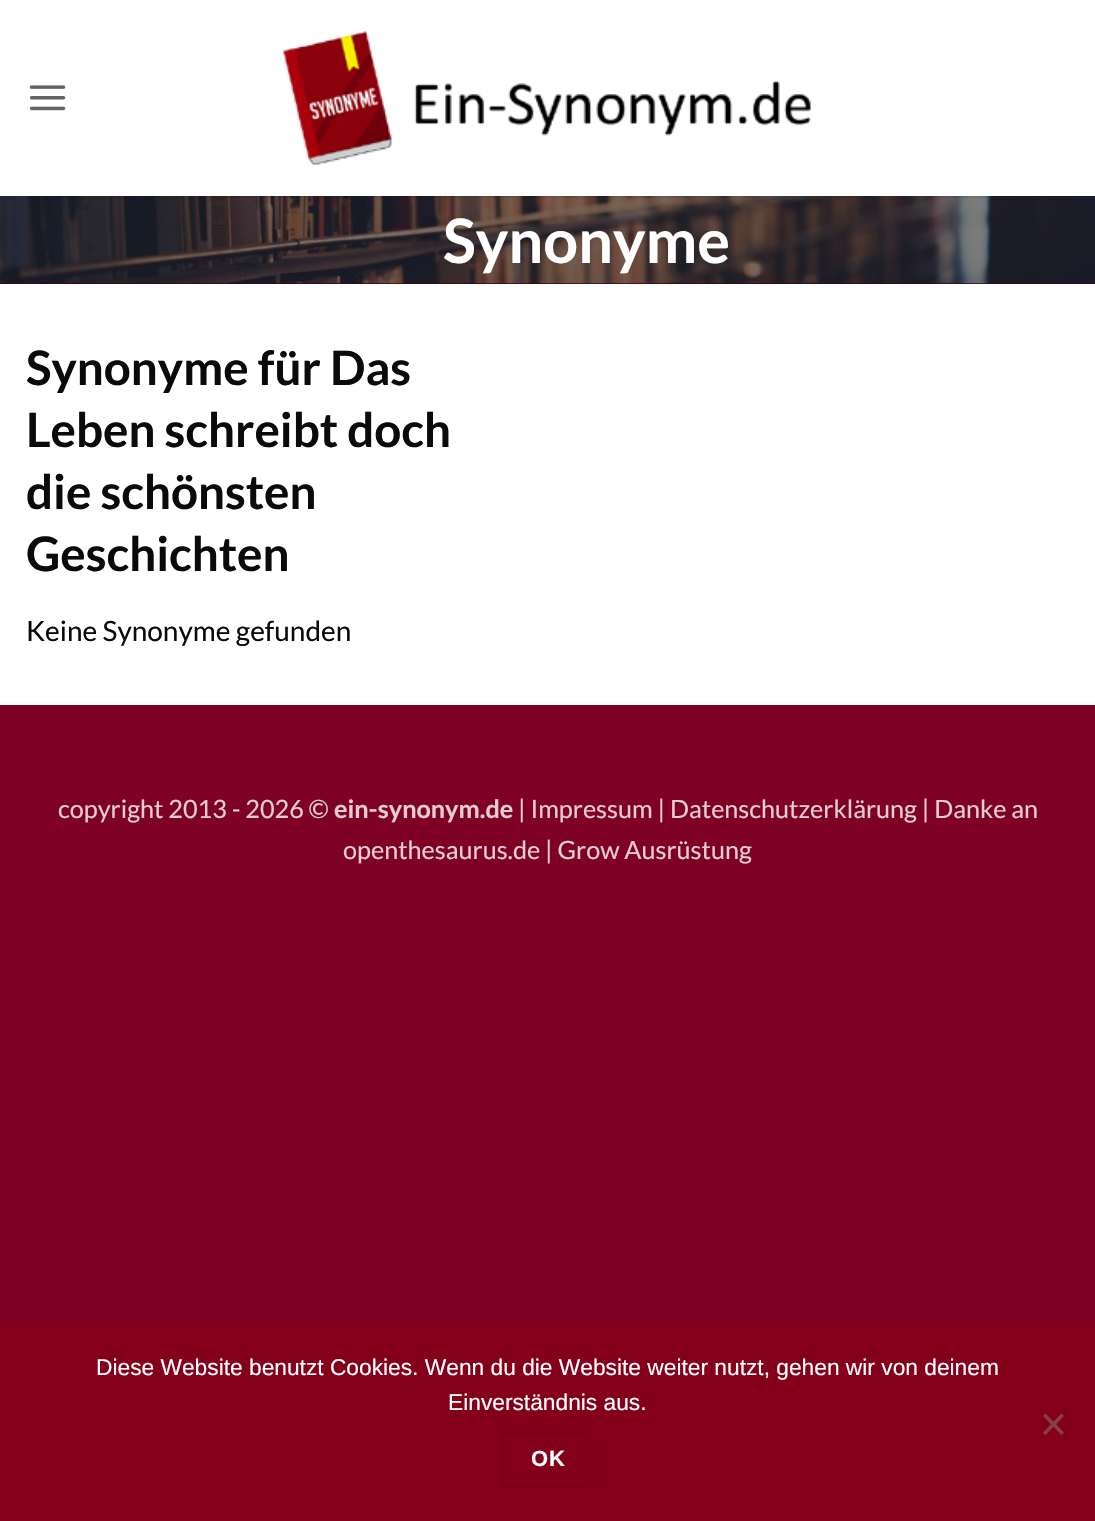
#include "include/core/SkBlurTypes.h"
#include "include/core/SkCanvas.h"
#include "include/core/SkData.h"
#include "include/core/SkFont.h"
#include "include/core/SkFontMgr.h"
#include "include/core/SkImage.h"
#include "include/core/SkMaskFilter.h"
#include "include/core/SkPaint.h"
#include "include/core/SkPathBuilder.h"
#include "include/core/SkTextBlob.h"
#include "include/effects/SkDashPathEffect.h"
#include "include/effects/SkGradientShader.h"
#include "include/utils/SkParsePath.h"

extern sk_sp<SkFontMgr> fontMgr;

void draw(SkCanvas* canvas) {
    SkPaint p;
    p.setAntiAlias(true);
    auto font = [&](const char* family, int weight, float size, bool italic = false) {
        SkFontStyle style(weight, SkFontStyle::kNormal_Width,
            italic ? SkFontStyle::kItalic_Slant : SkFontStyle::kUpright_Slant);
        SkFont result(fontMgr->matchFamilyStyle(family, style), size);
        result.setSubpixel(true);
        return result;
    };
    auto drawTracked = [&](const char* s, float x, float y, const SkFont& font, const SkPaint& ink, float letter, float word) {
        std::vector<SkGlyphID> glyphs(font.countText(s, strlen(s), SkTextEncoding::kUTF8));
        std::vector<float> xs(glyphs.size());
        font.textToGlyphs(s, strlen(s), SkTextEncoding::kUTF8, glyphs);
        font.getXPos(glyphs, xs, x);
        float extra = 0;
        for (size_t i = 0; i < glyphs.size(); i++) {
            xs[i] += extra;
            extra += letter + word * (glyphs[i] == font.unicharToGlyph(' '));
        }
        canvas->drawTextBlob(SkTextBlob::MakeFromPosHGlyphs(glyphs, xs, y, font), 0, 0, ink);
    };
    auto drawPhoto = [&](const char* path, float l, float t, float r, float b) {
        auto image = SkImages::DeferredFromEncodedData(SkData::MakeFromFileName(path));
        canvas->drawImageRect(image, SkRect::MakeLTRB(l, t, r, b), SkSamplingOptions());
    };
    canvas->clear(0xFF7E0023);
    p.setColor(0xFFFFFFFF);
    canvas->drawRect(SkRect::MakeLTRB(0, 0, 1095, 705), p);
    drawPhoto("media/1.png", 29, 85, 66, 111);
    drawPhoto("media/2.png", 283, 31, 811, 165);
    p.setColor(0xFF42000D);
    canvas->drawRect(SkRect::MakeLTRB(0, 283, 1095, 284), p);
    drawPhoto("media/3.png", 0, 196, 1095, 284);
    p.setColor(0x1A0A0A0A);
    canvas->drawRect(SkRect::MakeLTRB(26, 196, 1069, 198), p);
    auto font1 = font("Lato", 700, 61.25f);
    p.setColor(0xFFFFFFFF);
    canvas->drawString("Synonyme", 443, 263, font1, p);
    auto font2 = font("Lato", 700, 47.5f);
    p.setColor(0xFF0A0A0A);
    {
        const struct { const char* s; float x, y; } items[] = {
            {"Synonyme für Das", 26, 385},
            {"Leben schreibt doch", 26, 447},
            {"die schönsten", 26, 509},
            {"Geschichten", 26, 571},
        };
        for (auto [s, x, y] : items) {
            canvas->drawString(s, x, y, font2, p);
        }
    }
    auto font3 = font("Lato", 400, 28);
    canvas->drawString("Keine Synonyme gefunden", 26, 641, font3, p);
    auto font4 = font("Lato", 400, 25.2f);
    p.setColor(0xFFE5CCD3);
    canvas->drawString("copyright 2013 - 2026 ©", 58, 818, font4, p);
    auto font5 = font("Lato", 700, 25.2f);
    canvas->drawString("ein-synonym.de", 334, 818, font5, p);
    canvas->drawString("| Impressum | Datenschutzerklärung | Danke an", 518, 818, font4, p);
    canvas->drawString("openthesaurus.de | Grow Ausrüstung", 343, 859, font4, p);
    p.setColor(0xFF84001A);
    canvas->drawRect(SkRect::MakeLTRB(0, 1325, 1095, 1521), p);
    auto font6 = font("Liberation Sans", 400, 22.75f);
    p.setColor(0xFFFFFFFF);
    canvas->drawString("Diese Website benutzt Cookies. Wenn du die Website weiter nutzt, gehen wir von deinem", 96, 1375, font6, p);
    canvas->drawString("Einverständnis aus.", 448, 1410, font6, p);
    p.setColor(0xFF82404D);
    canvas->drawPath(SkPathBuilder().moveTo(1061.5f, 1413.5f).lineTo(1064, 1416).lineTo(1045.5f, 1435).lineTo(1043, 1432.5f).close().detach(), p);
    canvas->drawPath(SkPathBuilder().moveTo(1043, 1416).lineTo(1045.5f, 1413.5f).lineTo(1064, 1432.5f).lineTo(1061.5f, 1435).close().detach(), p);
    p.setStyle(SkPaint::kStroke_Style);
    p.setStrokeWidth(2);
    p.setColor(0xFF7D0019);
    canvas->drawRect(SkRect::MakeLTRB(503, 1433, 592, 1487), p);
    auto font7 = font("Liberation Sans", 700, 22);
    p.setStyle(SkPaint::kFill_Style);
    p.setColor(0xFFFFFFFF);
    drawTracked("OK", 531, 1466, font7, p, 1, 0);
}
